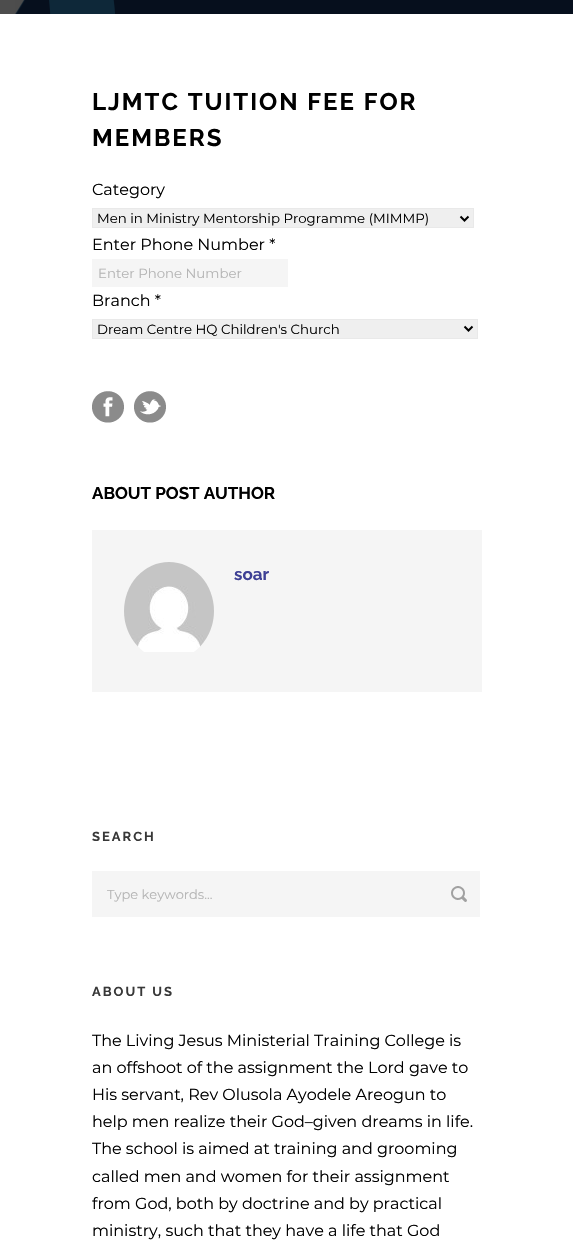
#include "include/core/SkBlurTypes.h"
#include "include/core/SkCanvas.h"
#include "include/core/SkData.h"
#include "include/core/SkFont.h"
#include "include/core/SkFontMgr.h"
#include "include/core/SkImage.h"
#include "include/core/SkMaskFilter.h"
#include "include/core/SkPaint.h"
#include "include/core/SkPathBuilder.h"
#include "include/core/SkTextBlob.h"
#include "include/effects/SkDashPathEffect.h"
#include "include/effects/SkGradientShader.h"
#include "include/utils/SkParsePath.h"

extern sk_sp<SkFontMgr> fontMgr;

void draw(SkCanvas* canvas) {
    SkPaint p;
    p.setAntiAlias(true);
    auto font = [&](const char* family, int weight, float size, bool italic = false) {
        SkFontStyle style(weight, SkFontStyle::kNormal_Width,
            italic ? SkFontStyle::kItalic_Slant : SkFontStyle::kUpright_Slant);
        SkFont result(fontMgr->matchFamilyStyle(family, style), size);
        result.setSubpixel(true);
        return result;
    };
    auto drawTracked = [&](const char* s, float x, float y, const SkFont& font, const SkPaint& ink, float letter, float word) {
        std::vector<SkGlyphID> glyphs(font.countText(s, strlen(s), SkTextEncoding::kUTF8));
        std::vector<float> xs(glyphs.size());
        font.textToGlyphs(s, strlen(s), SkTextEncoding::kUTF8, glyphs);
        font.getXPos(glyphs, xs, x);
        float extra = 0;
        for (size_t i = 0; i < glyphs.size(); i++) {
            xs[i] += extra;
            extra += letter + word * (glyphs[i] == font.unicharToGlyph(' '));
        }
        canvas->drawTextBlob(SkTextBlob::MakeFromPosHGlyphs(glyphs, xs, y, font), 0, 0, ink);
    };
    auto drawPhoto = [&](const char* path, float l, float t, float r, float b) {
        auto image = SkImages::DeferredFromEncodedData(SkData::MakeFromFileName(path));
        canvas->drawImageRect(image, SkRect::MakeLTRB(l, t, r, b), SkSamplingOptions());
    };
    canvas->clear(0xFFFFFFFF);
    p.setColor(0xFF4D4D4D);
    canvas->drawRect(SkRect::MakeLTRB(0, 0, 15, 14), p);
    drawPhoto("media/1.png", 15, 0, 573, 14);
    auto font1 = font("Raleway", 700, 24);
    p.setColor(0xFF000000);
    drawTracked("LJMTC TUITION FEE FOR", 92, 110, font1, p, 2, 0);
    drawTracked("MEMBERS", 92, 146, font1, p, 2, 0);
    auto font2 = font("Montserrat", 400, 16);
    canvas->drawString("Category", 92, 195, font2, p);
    p.setColor(0xFFEFEFEF);
    canvas->drawRect(SkRect::MakeLTRB(92.5f, 208.5f, 473.5f, 227.5f), p);
    p.setStyle(SkPaint::kStroke_Style);
    p.setStrokeWidth(1);
    p.setColor(0xFFE9E9E9);
    canvas->drawRect(SkRect::MakeLTRB(92.5f, 208.5f, 473.5f, 227.5f), p);
    p.setStrokeWidth(2);
    p.setColor(0xFF000000);
    canvas->drawPath(SkPathBuilder().moveTo(460.5f, 216.5f).lineTo(464.5f, 220.5f).lineTo(468.5f, 216.5f).detach(), p);
    auto font3 = font("Montserrat", 400, 13.3f);
    p.setStyle(SkPaint::kFill_Style);
    canvas->drawString("Men in Ministry Mentorship Programme (MIMMP)", 97, 223, font3, p);
    canvas->drawString("Enter Phone Number *", 92, 250, font2, p);
    p.setColor(0xFFF5F5F5);
    canvas->drawRect(SkRect::MakeLTRB(92, 259, 288, 287), p);
    p.setColor(0xFFB5B5B5);
    canvas->drawString("Enter Phone Number", 98, 278, font3, p);
    p.setColor(0xFF000000);
    canvas->drawString("Branch *", 92, 306, font2, p);
    p.setColor(0xFFEFEFEF);
    canvas->drawRect(SkRect::MakeLTRB(92.5f, 319.5f, 477.5f, 338.5f), p);
    p.setStyle(SkPaint::kStroke_Style);
    p.setStrokeWidth(1);
    p.setColor(0xFFE9E9E9);
    canvas->drawRect(SkRect::MakeLTRB(92.5f, 319.5f, 477.5f, 338.5f), p);
    p.setStrokeWidth(2);
    p.setColor(0xFF000000);
    canvas->drawPath(SkPathBuilder().moveTo(464.5f, 326.5f).lineTo(468.5f, 330.5f).lineTo(472.5f, 326.5f).detach(), p);
    p.setStyle(SkPaint::kFill_Style);
    canvas->drawString("Dream Centre HQ Children's Church", 97, 334, font3, p);
    drawPhoto("media/2.png", 92, 391, 124, 423);
    drawPhoto("media/3.png", 134, 391, 166, 423);
    auto font4 = font("Raleway", 700, 17);
    canvas->drawString("ABOUT POST AUTHOR", 92, 499, font4, p);
    p.setColor(0xFFF5F5F5);
    canvas->drawRect(SkRect::MakeLTRB(92, 530, 482, 692), p);
    drawPhoto("media/4.png", 124, 562, 214, 652);
    p.setColor(0xFF3E4095);
    canvas->drawString("soar", 234, 580, font4, p);
    auto font5 = font("Raleway", 700, 13);
    p.setColor(0xFF383838);
    drawTracked("SEARCH", 92, 841, font5, p, 2, 0);
    p.setColor(0xFFF5F5F5);
    canvas->drawRect(SkRect::MakeLTRB(92, 871, 480, 917), p);
    auto font6 = font("Montserrat", 400, 13);
    p.setColor(0xFFB5B5B5);
    canvas->drawString("Type keywords...", 107, 899, font6, p);
    drawPhoto("media/5.png", 451, 886, 467, 902);
    p.setColor(0xFF383838);
    drawTracked("ABOUT US", 92, 996, font5, p, 2, 0);
    p.setColor(0xFF000000);
    {
        const struct { const char* s; float x, y; } items[] = {
            {"The Living Jesus Ministerial Training College is", 92, 1046},
            {"an offshoot of the assignment the Lord gave to", 92, 1073},
            {"His servant, Rev Olusola Ayodele Areogun to", 92, 1100},
            {"help men realize their God–given dreams in life.", 92, 1127},
            {"The school is aimed at training and grooming", 92, 1154},
            {"called men and women for their assignment", 92, 1182},
            {"from God, both by doctrine and by practical", 92, 1209},
            {"ministry, such that they have a life that God", 92, 1236},
        };
        for (auto [s, x, y] : items) {
            canvas->drawString(s, x, y, font2, p);
        }
    }
}
